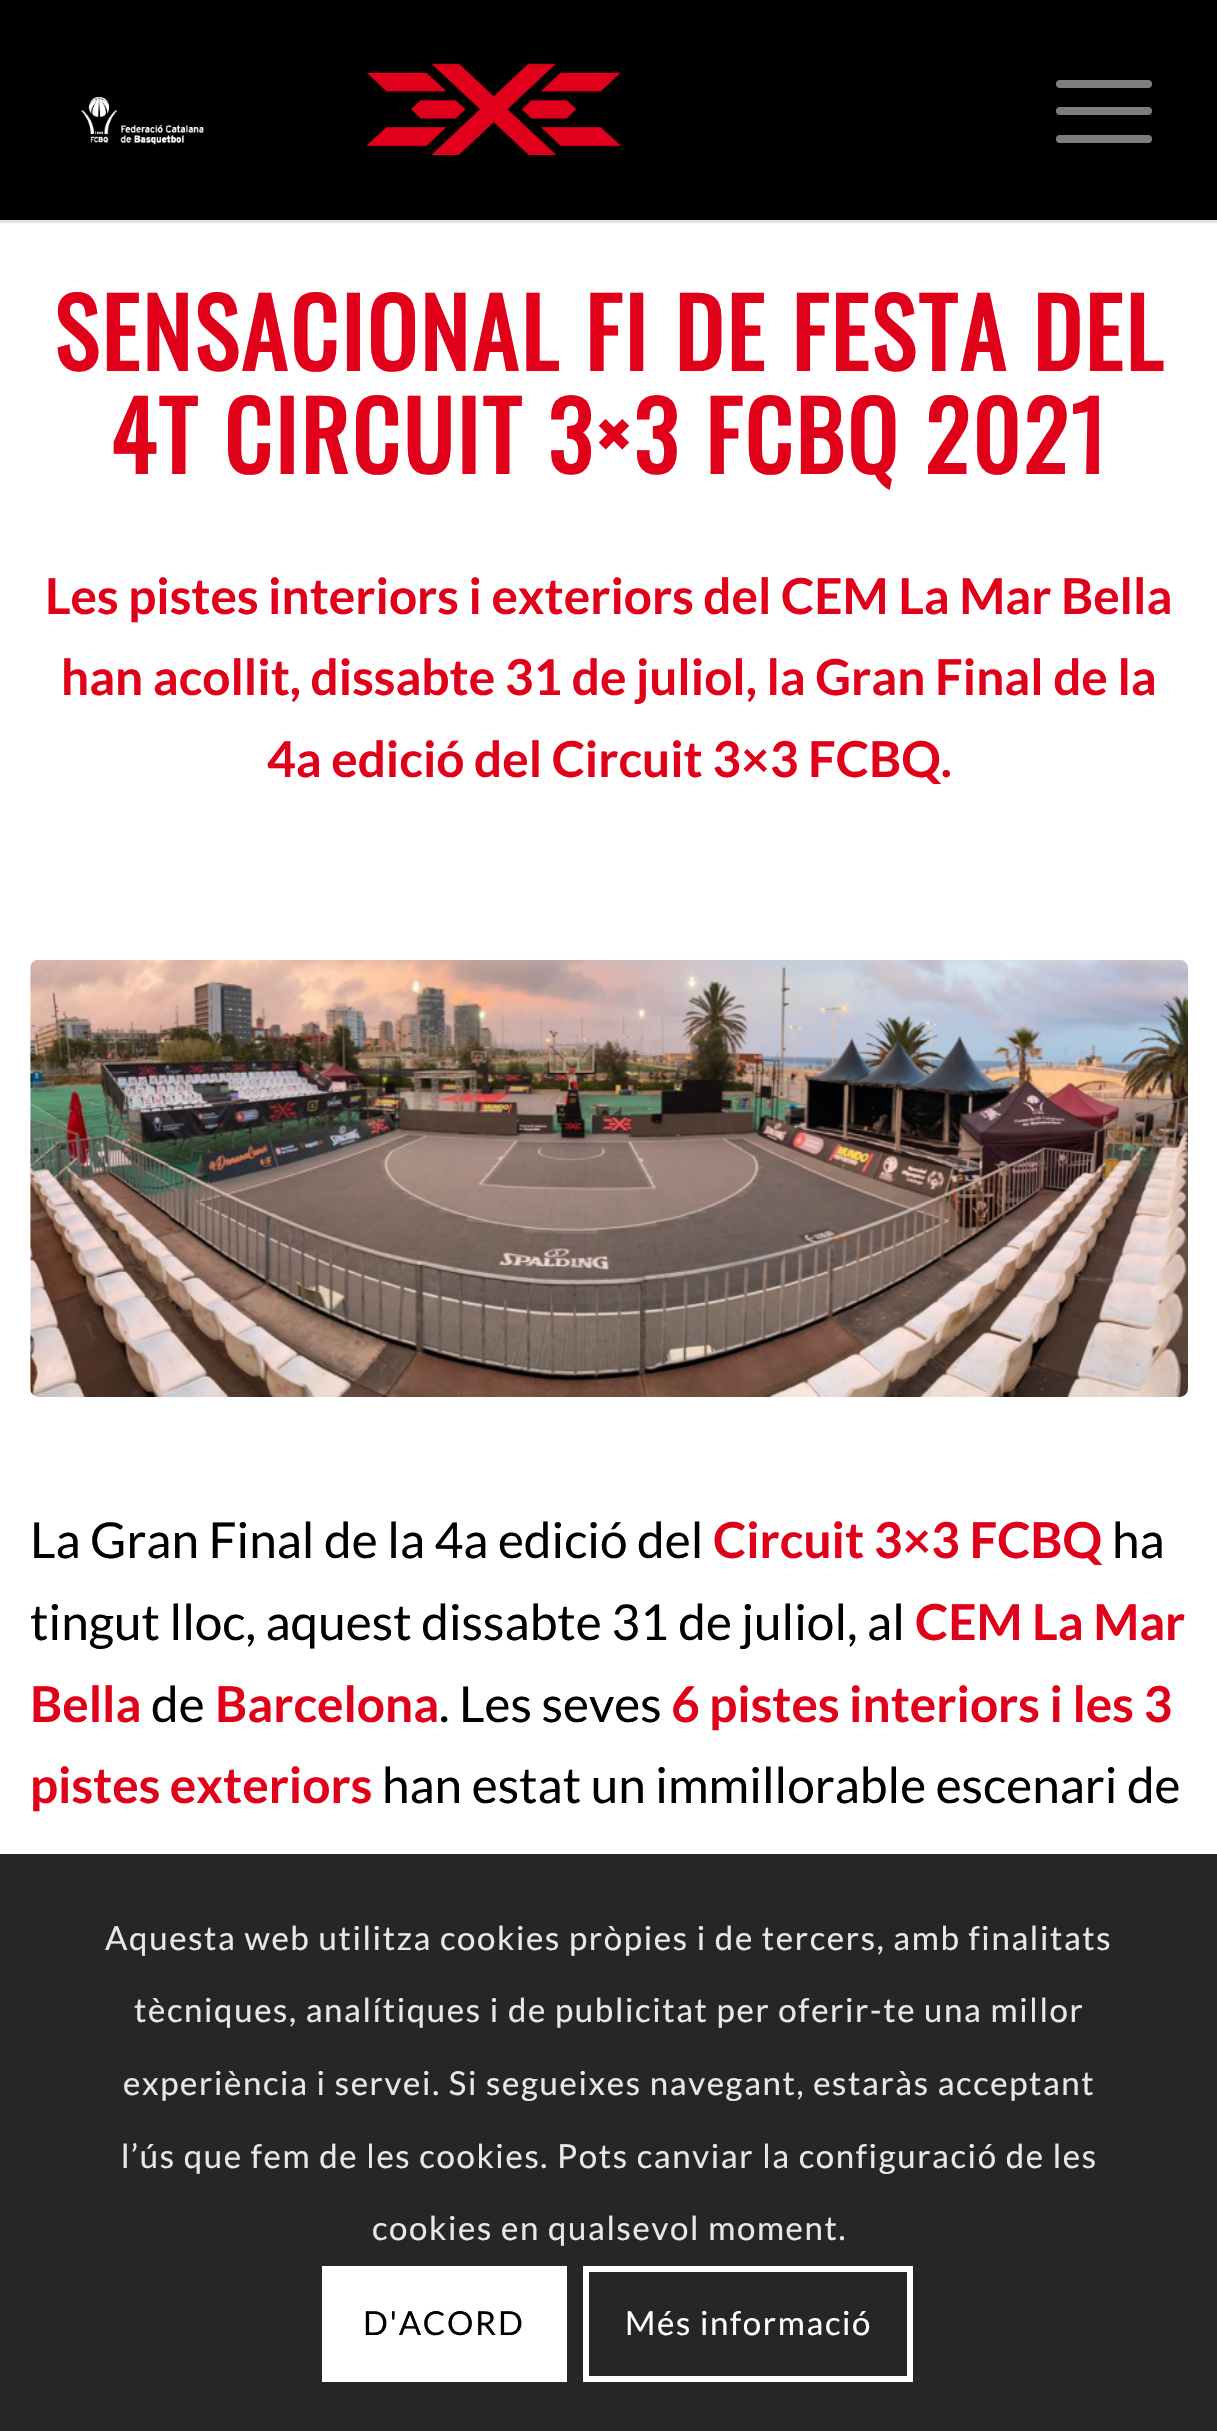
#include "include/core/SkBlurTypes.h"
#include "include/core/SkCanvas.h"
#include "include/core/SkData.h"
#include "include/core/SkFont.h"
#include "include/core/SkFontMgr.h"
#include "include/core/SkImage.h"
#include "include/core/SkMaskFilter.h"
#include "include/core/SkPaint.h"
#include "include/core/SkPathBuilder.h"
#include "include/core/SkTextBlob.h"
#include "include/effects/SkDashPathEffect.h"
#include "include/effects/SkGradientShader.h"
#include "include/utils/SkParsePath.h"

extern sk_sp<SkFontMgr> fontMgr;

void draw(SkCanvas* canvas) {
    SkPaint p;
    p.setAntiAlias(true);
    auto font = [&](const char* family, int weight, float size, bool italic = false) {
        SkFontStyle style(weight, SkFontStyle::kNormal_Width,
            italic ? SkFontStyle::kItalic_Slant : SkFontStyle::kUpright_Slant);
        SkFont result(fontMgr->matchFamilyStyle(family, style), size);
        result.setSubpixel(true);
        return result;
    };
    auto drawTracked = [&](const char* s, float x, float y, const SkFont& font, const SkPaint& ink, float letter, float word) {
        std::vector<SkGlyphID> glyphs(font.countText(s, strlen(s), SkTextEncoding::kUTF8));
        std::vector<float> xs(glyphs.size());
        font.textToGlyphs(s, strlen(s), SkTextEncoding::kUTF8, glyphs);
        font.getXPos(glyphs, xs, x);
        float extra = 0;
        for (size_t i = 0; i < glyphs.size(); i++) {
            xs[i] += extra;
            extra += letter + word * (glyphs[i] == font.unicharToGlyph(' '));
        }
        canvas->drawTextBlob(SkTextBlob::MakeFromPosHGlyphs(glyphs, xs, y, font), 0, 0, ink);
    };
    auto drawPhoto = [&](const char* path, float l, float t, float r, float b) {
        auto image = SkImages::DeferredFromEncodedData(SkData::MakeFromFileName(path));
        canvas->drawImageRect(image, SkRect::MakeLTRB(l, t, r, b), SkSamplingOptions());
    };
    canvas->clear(0xFF000000);
    p.setColor(0xFFE1E1E1);
    canvas->drawRect(SkRect::MakeLTRB(0, 220, 1217, 223), p);
    drawPhoto("media/1.png", 81, 63, 621, 155);
    p.setColor(0xFF7D7D7D);
    canvas->drawRoundRect(SkRect::MakeLTRB(1056, 107, 1152, 115), 4, 4, p);
    canvas->drawRoundRect(SkRect::MakeLTRB(1056, 80, 1152, 88), 4, 4, p);
    canvas->drawRoundRect(SkRect::MakeLTRB(1056, 135, 1152, 143), 4, 4, p);
    p.setColor(0xFFFFFFFF);
    canvas->drawRect(SkRect::MakeLTRB(0, 223, 1217, 2431), p);
    auto font1 = font("Oswald", 700, 93.5f);
    p.setColor(0xFFE0001A);
    drawTracked("SENSACIONAL FI DE FESTA DEL", 54, 371, font1, p, 2.75f, 0);
    drawTracked("4T CIRCUIT 3×3 FCBQ 2021", 110, 474, font1, p, 2.75f, 0);
    auto font2 = font("Lato", 700, 49.5f);
    {
        const struct { const char* s; float x, y; } items[] = {
            {"Les pistes interiors i exteriors del CEM La Mar Bella", 45, 614},
            {"han acollit, dissabte 31 de juliol, la Gran Final de la", 61, 695},
            {"4a edició del Circuit 3×3 FCBQ.", 267, 777},
        };
        for (auto [s, x, y] : items) {
            canvas->drawString(s, x, y, font2, p);
        }
    }
    drawPhoto("media/2.png", 30, 959, 1188, 1397);
    auto font3 = font("Lato", 400, 49.5f);
    p.setColor(0xFF000000);
    canvas->drawString("La Gran Final de la 4a edició del", 30, 1558, font3, p);
    p.setColor(0xFFE0001A);
    canvas->drawString("Circuit 3×3 FCBQ", 713, 1558, font2, p);
    p.setColor(0xFF000000);
    canvas->drawString("ha", 1112, 1558, font3, p);
    canvas->drawString("tingut lloc, aquest dissabte 31 de juliol, al", 30, 1640, font3, p);
    p.setColor(0xFFE0001A);
    canvas->drawString("CEM La Mar", 915, 1640, font2, p);
    canvas->drawString("Bella", 30, 1722, font2, p);
    p.setColor(0xFF000000);
    canvas->drawString("de", 151, 1722, font3, p);
    p.setColor(0xFFE0001A);
    canvas->drawString("Barcelona", 215, 1722, font2, p);
    p.setColor(0xFF000000);
    canvas->drawString(". Les seves", 439, 1722, font3, p);
    p.setColor(0xFFE0001A);
    canvas->drawString("6 pistes interiors i les 3", 671, 1722, font2, p);
    canvas->drawString("pistes exteriors", 30, 1803, font2, p);
    p.setColor(0xFF000000);
    canvas->drawString("han estat un immillorable escenari de", 382, 1803, font3, p);
    p.setColor(0xD9000000);
    canvas->drawRect(SkRect::MakeLTRB(0, 1854, 1217, 2431), p);
    auto font4 = font("Lato", 400, 33);
    p.setColor(0xFFE9E8E8);
    {
        const struct { const char* s; float x, y; } items[] = {
            {"Aquesta web utilitza cookies pròpies i de tercers, amb finalitats", 105, 1950},
            {"tècniques, analítiques i de publicitat per oferir-te una millor", 134, 2022},
            {"experiència i servei. Si segueixes navegant, estaràs acceptant", 123, 2095},
            {"l’ús que fem de les cookies. Pots canviar la configuració de les", 121, 2168},
            {"cookies en qualsevol moment.", 372, 2240},
        };
        for (auto [s, x, y] : items) {
            drawTracked(s, x, y, font4, p, 1.65f, 0);
        }
    }
    p.setColor(0xFFFFFFFF);
    canvas->drawRect(SkRect::MakeLTRB(322, 2266, 567, 2382), p);
    p.setColor(0xFF000000);
    drawTracked("D'ACORD", 363, 2335, font4, p, 1.65f, 0);
    p.setStyle(SkPaint::kStroke_Style);
    p.setStrokeWidth(6);
    p.setColor(0xFFFFFFFF);
    canvas->drawRect(SkRect::MakeLTRB(586, 2269, 910, 2379), p);
    p.setStyle(SkPaint::kFill_Style);
    drawTracked("Més informació", 625, 2335, font4, p, 1.65f, 0);
}
